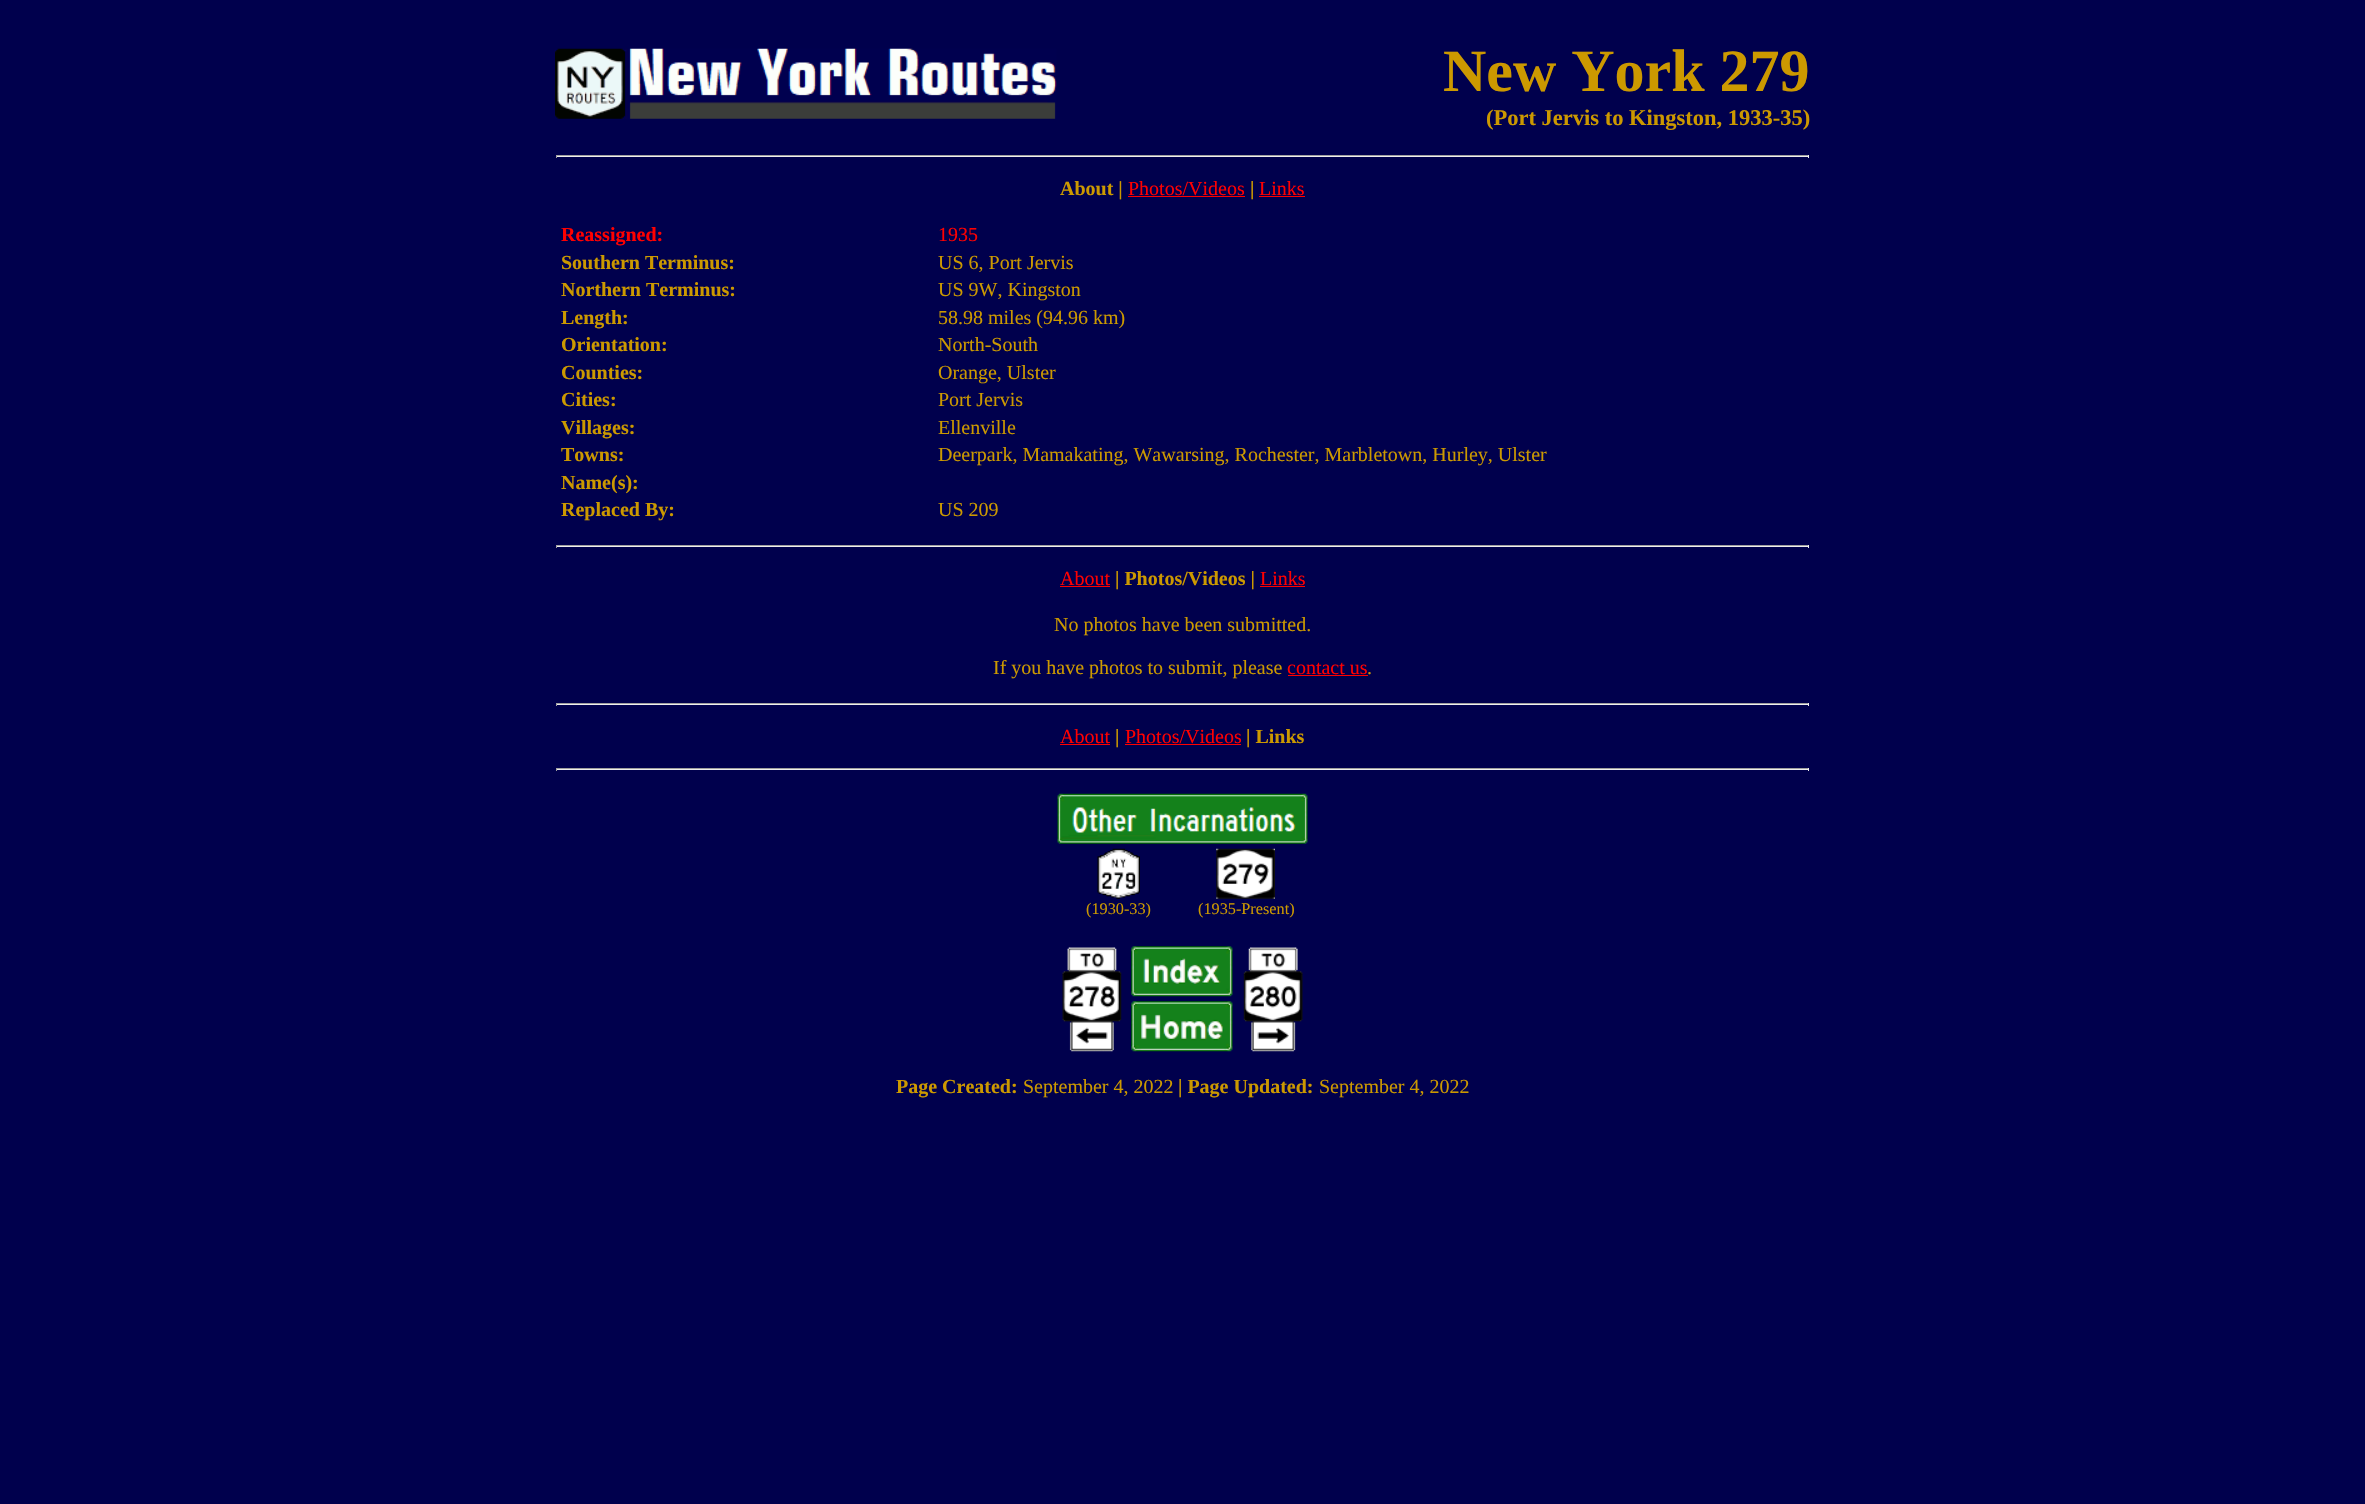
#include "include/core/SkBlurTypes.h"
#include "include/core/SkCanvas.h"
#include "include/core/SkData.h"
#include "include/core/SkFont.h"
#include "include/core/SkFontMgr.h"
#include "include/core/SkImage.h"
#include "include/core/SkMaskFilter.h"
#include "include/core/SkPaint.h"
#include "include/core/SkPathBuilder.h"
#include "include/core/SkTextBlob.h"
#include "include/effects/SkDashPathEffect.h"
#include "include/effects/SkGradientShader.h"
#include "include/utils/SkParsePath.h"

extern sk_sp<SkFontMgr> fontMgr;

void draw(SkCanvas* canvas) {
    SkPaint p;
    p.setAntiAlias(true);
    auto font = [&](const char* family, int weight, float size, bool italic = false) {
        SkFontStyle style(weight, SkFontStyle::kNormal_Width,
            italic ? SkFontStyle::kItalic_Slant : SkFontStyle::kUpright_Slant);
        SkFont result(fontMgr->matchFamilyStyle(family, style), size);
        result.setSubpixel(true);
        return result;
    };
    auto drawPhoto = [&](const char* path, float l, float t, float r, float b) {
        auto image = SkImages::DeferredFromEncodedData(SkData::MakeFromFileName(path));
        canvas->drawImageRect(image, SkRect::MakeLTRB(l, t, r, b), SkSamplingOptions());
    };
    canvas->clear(0xFF00004D);
    drawPhoto("media/1.png", 555, 48, 1057, 119);
    auto font1 = font("Liberation Serif", 700, 60);
    p.setColor(0xFFCC9900);
    canvas->drawString("New York 279", 1443, 91, font1, p);
    auto font2 = font("Liberation Serif", 700, 22.5f);
    canvas->drawString("(Port Jervis to Kingston, 1933-35)", 1486, 125, font2, p);
    {
        const struct { float l, t, r, b; SkColor color; } items[] = {
            {556, 155, 1809, 156, 0xFF9F9F9F},
            {1808, 155, 1809, 158, 0xFFEEEEEE},
            {556, 156, 1809, 157, 0xFFEEEEEE},
            {556, 155, 557, 158, 0xFF9F9F9F},
        };
        for (auto [l, t, r, b, color] : items) {
            p.setColor(color);
            canvas->drawRect(SkRect::MakeLTRB(l, t, r, b), p);
        }
    }
    auto font3 = font("Liberation Serif", 700, 20);
    p.setColor(0xFFCC9900);
    canvas->drawString("About |", 1060, 195, font3, p);
    auto font4 = font("Liberation Serif", 400, 20);
    p.setColor(0xFFFF0000);
    canvas->drawString("Photos/Videos", 1128, 195, font4, p);
    canvas->drawRect(SkRect::MakeLTRB(1128, 196, 1245, 197), p);
    p.setColor(0xFFCC9900);
    canvas->drawString("|", 1250, 195, font3, p);
    p.setColor(0xFFFF0000);
    canvas->drawString("Links", 1259, 195, font4, p);
    canvas->drawRect(SkRect::MakeLTRB(1259, 196, 1305, 197), p);
    canvas->drawString("Reassigned:", 561, 241, font3, p);
    canvas->drawString("1935", 938, 241, font4, p);
    p.setColor(0xFFCC9900);
    canvas->drawString("Southern Terminus:", 561, 269, font3, p);
    canvas->drawString("US 6, Port Jervis", 938, 269, font4, p);
    canvas->drawString("Northern Terminus:", 561, 296, font3, p);
    canvas->drawString("US 9W, Kingston", 938, 296, font4, p);
    canvas->drawString("Length:", 561, 324, font3, p);
    canvas->drawString("58.98 miles (94.96 km)", 938, 324, font4, p);
    canvas->drawString("Orientation:", 561, 351, font3, p);
    canvas->drawString("North-South", 938, 351, font4, p);
    canvas->drawString("Counties:", 561, 379, font3, p);
    canvas->drawString("Orange, Ulster", 938, 379, font4, p);
    canvas->drawString("Cities:", 561, 406, font3, p);
    canvas->drawString("Port Jervis", 938, 406, font4, p);
    canvas->drawString("Villages:", 561, 434, font3, p);
    canvas->drawString("Ellenville", 938, 434, font4, p);
    canvas->drawString("Towns:", 561, 461, font3, p);
    canvas->drawString("Deerpark, Mamakating, Wawarsing, Rochester, Marbletown, Hurley, Ulster", 938, 461, font4, p);
    canvas->drawString("Name(s):", 561, 489, font3, p);
    canvas->drawString("Replaced By:", 561, 516, font3, p);
    canvas->drawString("US 209", 938, 516, font4, p);
    {
        const struct { float l, t, r, b; SkColor color; } items[] = {
            {556, 545, 1809, 546, 0xFF9F9F9F},
            {1808, 545, 1809, 548, 0xFFEEEEEE},
            {556, 546, 1809, 547, 0xFFEEEEEE},
            {556, 545, 557, 548, 0xFF9F9F9F},
        };
        for (auto [l, t, r, b, color] : items) {
            p.setColor(color);
            canvas->drawRect(SkRect::MakeLTRB(l, t, r, b), p);
        }
    }
    p.setColor(0xFFFF0000);
    canvas->drawString("About", 1060, 585, font4, p);
    canvas->drawRect(SkRect::MakeLTRB(1060, 586, 1110, 587), p);
    p.setColor(0xFFCC9900);
    canvas->drawString("| Photos/Videos |", 1115, 585, font3, p);
    p.setColor(0xFFFF0000);
    canvas->drawString("Links", 1260, 585, font4, p);
    canvas->drawRect(SkRect::MakeLTRB(1260, 586, 1305, 587), p);
    p.setColor(0xFFCC9900);
    canvas->drawString("No photos have been submitted.", 1054, 631, font4, p);
    canvas->drawString("If you have photos to submit, please", 993, 674, font4, p);
    p.setColor(0xFFFF0000);
    canvas->drawString("contact us", 1287, 674, font4, p);
    canvas->drawRect(SkRect::MakeLTRB(1288, 675, 1368, 676), p);
    p.setColor(0xFFCC9900);
    canvas->drawString(".", 1367, 674, font4, p);
    {
        const struct { float l, t, r, b; SkColor color; } items[] = {
            {556, 703, 1809, 704, 0xFF9F9F9F},
            {1808, 703, 1809, 706, 0xFFEEEEEE},
            {556, 704, 1809, 705, 0xFFEEEEEE},
            {556, 703, 557, 706, 0xFF9F9F9F},
        };
        for (auto [l, t, r, b, color] : items) {
            p.setColor(color);
            canvas->drawRect(SkRect::MakeLTRB(l, t, r, b), p);
        }
    }
    p.setColor(0xFFFF0000);
    canvas->drawString("About", 1060, 743, font4, p);
    canvas->drawRect(SkRect::MakeLTRB(1060, 744, 1110, 745), p);
    p.setColor(0xFFCC9900);
    canvas->drawString("|", 1115, 743, font3, p);
    p.setColor(0xFFFF0000);
    canvas->drawString("Photos/Videos", 1125, 743, font4, p);
    canvas->drawRect(SkRect::MakeLTRB(1125, 744, 1241, 745), p);
    p.setColor(0xFFCC9900);
    canvas->drawString("| Links", 1246, 743, font3, p);
    {
        const struct { float l, t, r, b; SkColor color; } items[] = {
            {556, 768, 1809, 769, 0xFF9F9F9F},
            {1808, 768, 1809, 771, 0xFFEEEEEE},
            {556, 769, 1809, 770, 0xFFEEEEEE},
            {556, 768, 557, 771, 0xFF9F9F9F},
        };
        for (auto [l, t, r, b, color] : items) {
            p.setColor(color);
            canvas->drawRect(SkRect::MakeLTRB(l, t, r, b), p);
        }
    }
    drawPhoto("media/2.png", 1057, 793, 1308, 844);
    drawPhoto("media/3.png", 1097, 848, 1140, 899);
    auto font5 = font("Liberation Serif", 400, 16.25f);
    p.setColor(0xFFCC9900);
    canvas->drawString("(1930-33)", 1086, 914, font5, p);
    drawPhoto("media/4.png", 1216, 848, 1275, 899);
    canvas->drawString("(1935-Present)", 1198, 914, font5, p);
    drawPhoto("media/5.png", 1062, 947, 1122, 1052);
    drawPhoto("media/6.png", 1131, 946, 1233, 997);
    drawPhoto("media/7.png", 1243, 947, 1303, 1052);
    drawPhoto("media/8.png", 1131, 1001, 1233, 1052);
    canvas->drawString("Page Created:", 896, 1093, font3, p);
    canvas->drawString("September 4, 2022", 1023, 1093, font4, p);
    canvas->drawString("| Page Updated:", 1178, 1093, font3, p);
    canvas->drawString("September 4, 2022", 1319, 1093, font4, p);
}
